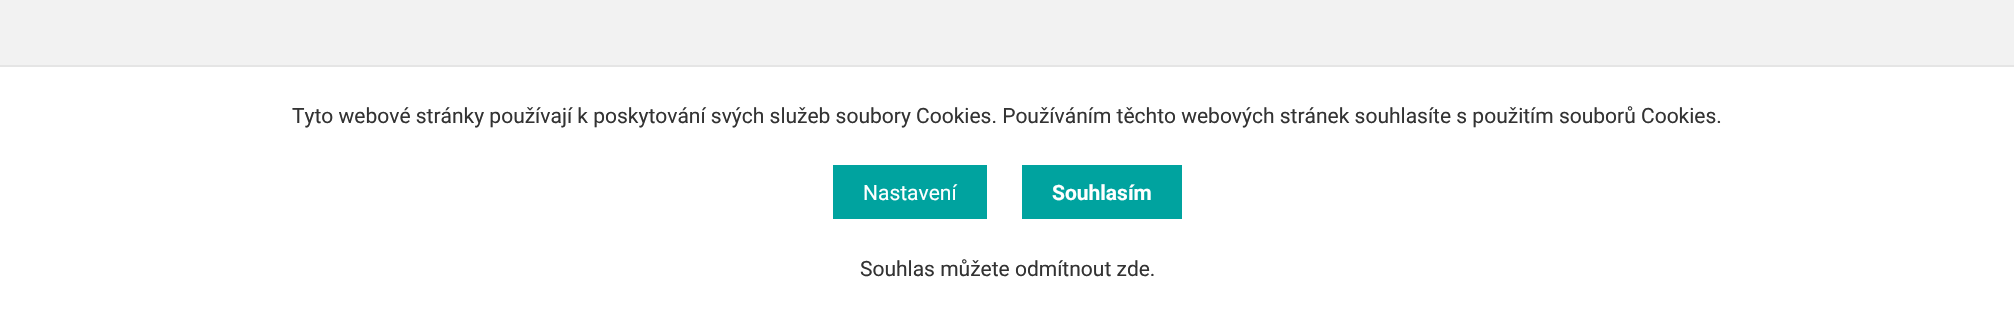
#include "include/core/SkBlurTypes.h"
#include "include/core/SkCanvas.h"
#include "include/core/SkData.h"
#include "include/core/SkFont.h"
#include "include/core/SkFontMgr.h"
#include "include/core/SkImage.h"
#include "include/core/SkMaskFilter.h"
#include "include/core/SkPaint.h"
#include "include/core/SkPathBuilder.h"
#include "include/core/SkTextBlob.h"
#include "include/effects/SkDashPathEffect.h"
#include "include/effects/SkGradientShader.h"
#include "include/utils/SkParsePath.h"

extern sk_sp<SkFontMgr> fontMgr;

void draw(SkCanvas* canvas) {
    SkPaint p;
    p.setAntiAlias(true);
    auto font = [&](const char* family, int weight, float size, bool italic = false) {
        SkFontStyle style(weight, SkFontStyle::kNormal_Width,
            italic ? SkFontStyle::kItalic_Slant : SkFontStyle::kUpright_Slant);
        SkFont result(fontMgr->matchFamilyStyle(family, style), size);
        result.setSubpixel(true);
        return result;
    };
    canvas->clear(0xFFF2F2F2);
    p.setColor(0xFFFFFFFF);
    canvas->drawRect(SkRect::MakeLTRB(0, 67, 2014, 318), p);
    p.setColor(0xFFE5E5E5);
    canvas->drawRect(SkRect::MakeLTRB(0, 65, 2014, 67), p);
    auto font1 = font("Roboto", 400, 21);
    p.setColor(0xFF333333);
    canvas->drawString("Tyto webové stránky používají k poskytování svých služeb soubory Cookies. Používáním těchto webových stránek souhlasíte s použitím souborů Cookies.", 292, 123, font1, p);
    p.setColor(0xFF00A39F);
    canvas->drawRect(SkRect::MakeLTRB(833, 165, 987, 219), p);
    p.setColor(0xFFFFFFFF);
    canvas->drawString("Nastavení", 863, 200, font1, p);
    p.setColor(0xFF00A39F);
    canvas->drawRect(SkRect::MakeLTRB(1022, 165, 1182, 219), p);
    auto font2 = font("Roboto", 700, 21);
    p.setColor(0xFFFFFFFF);
    canvas->drawString("Souhlasím", 1052, 200, font2, p);
    p.setColor(0xFF333333);
    canvas->drawString("Souhlas můžete odmítnout zde.", 860, 276, font1, p);
}
